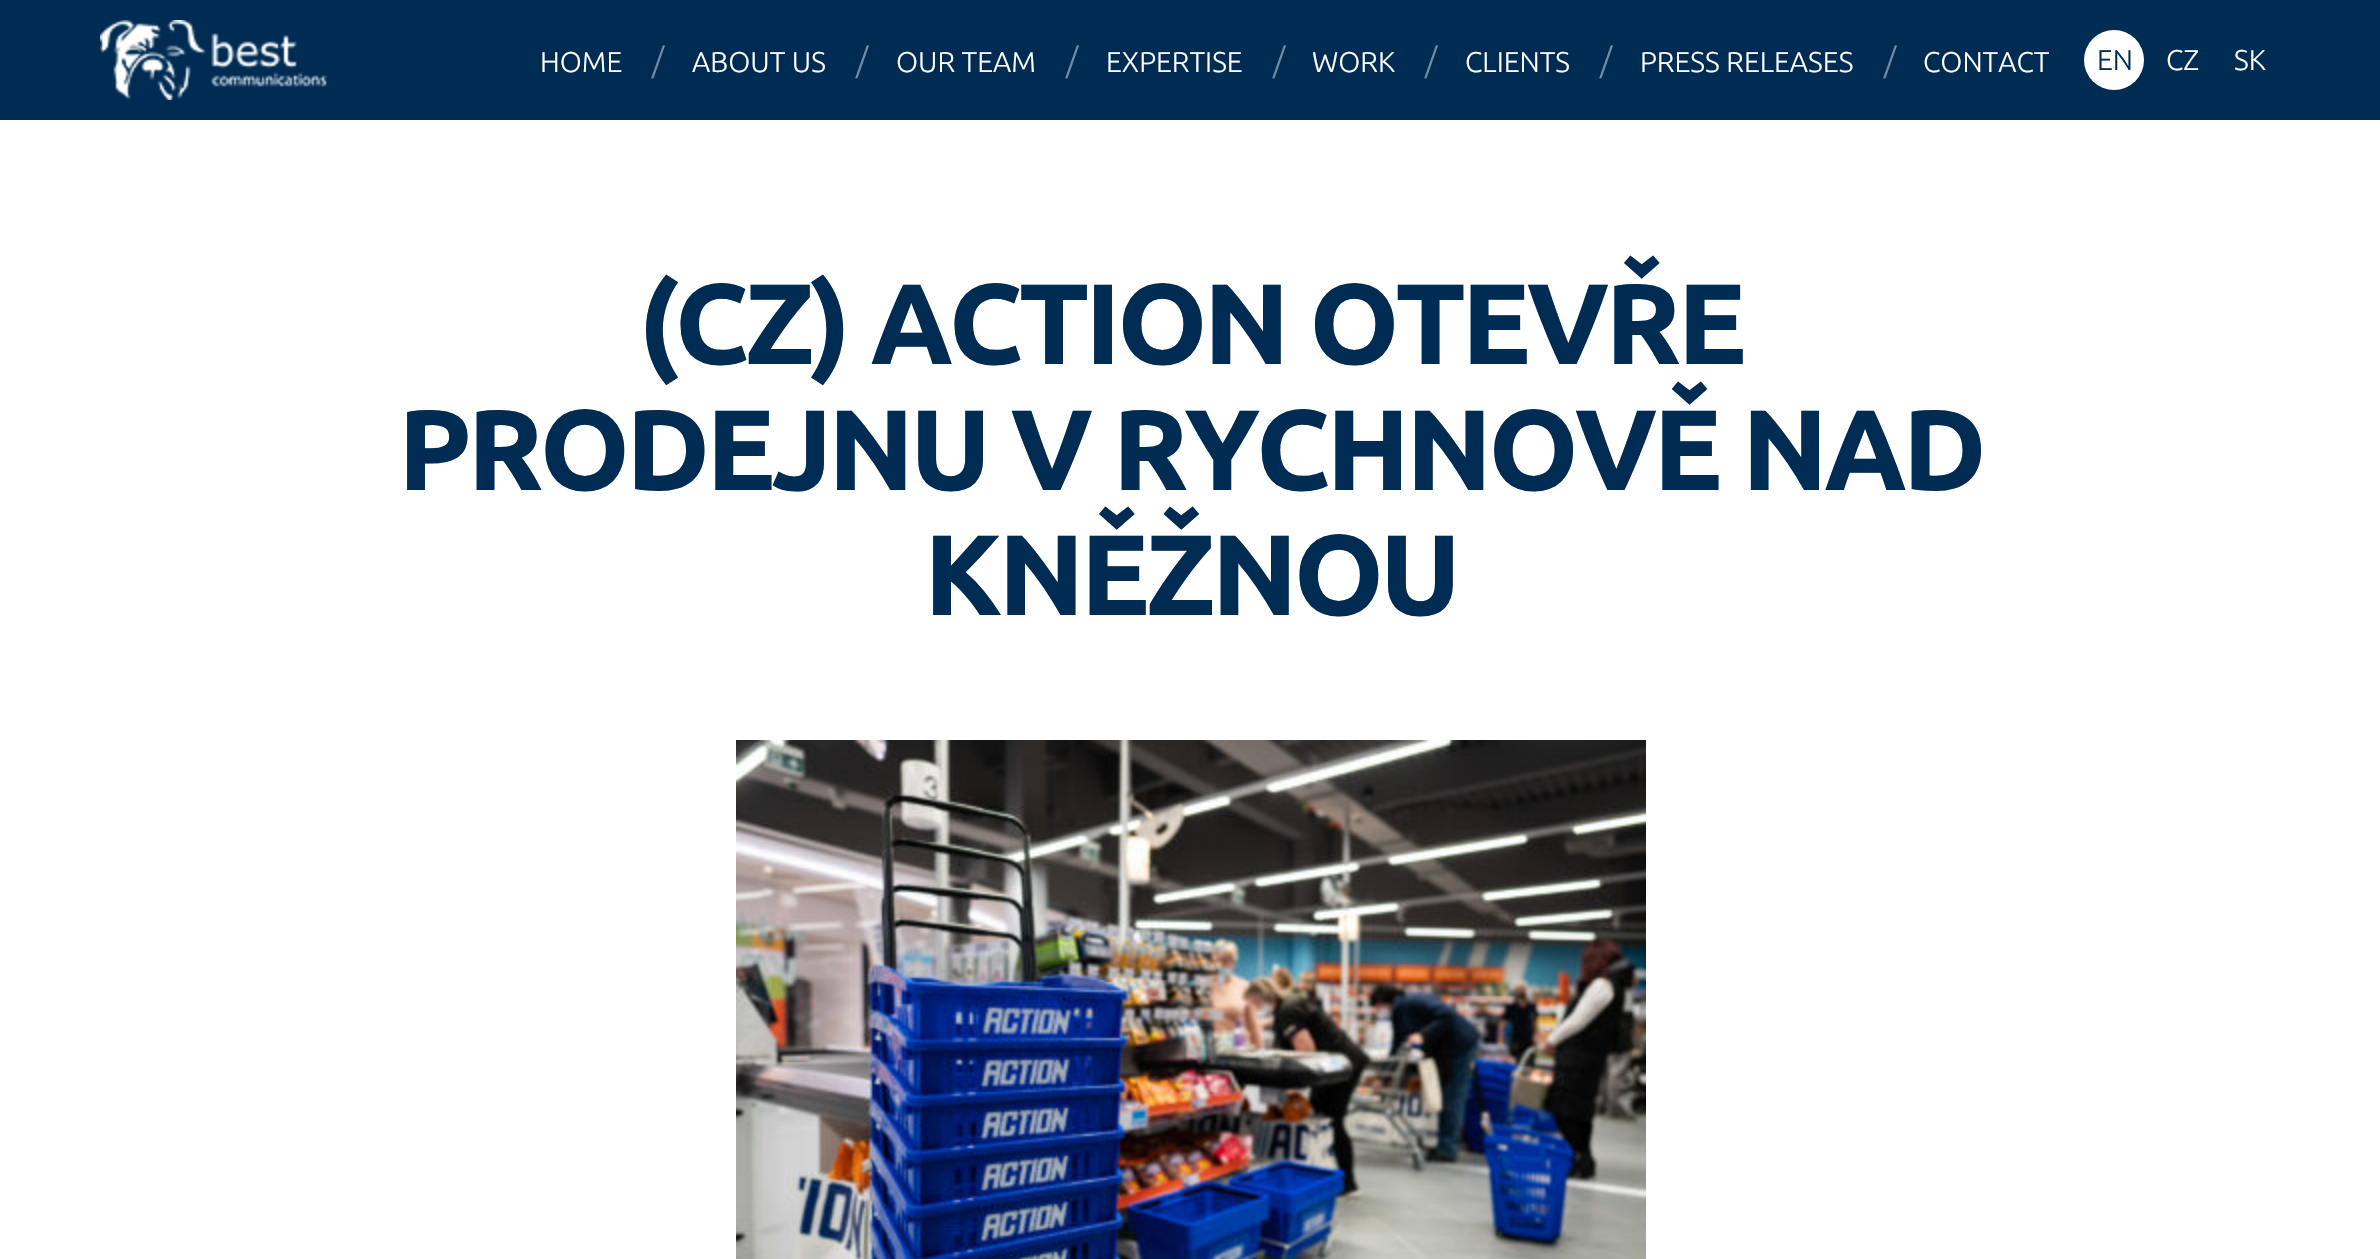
#include "include/core/SkBlurTypes.h"
#include "include/core/SkCanvas.h"
#include "include/core/SkData.h"
#include "include/core/SkFont.h"
#include "include/core/SkFontMgr.h"
#include "include/core/SkImage.h"
#include "include/core/SkMaskFilter.h"
#include "include/core/SkPaint.h"
#include "include/core/SkPathBuilder.h"
#include "include/core/SkTextBlob.h"
#include "include/effects/SkDashPathEffect.h"
#include "include/effects/SkGradientShader.h"
#include "include/utils/SkParsePath.h"

extern sk_sp<SkFontMgr> fontMgr;

void draw(SkCanvas* canvas) {
    SkPaint p;
    p.setAntiAlias(true);
    auto font = [&](const char* family, int weight, float size, bool italic = false) {
        SkFontStyle style(weight, SkFontStyle::kNormal_Width,
            italic ? SkFontStyle::kItalic_Slant : SkFontStyle::kUpright_Slant);
        SkFont result(fontMgr->matchFamilyStyle(family, style), size);
        result.setSubpixel(true);
        return result;
    };
    auto drawTracked = [&](const char* s, float x, float y, const SkFont& font, const SkPaint& ink, float letter, float word) {
        std::vector<SkGlyphID> glyphs(font.countText(s, strlen(s), SkTextEncoding::kUTF8));
        std::vector<float> xs(glyphs.size());
        font.textToGlyphs(s, strlen(s), SkTextEncoding::kUTF8, glyphs);
        font.getXPos(glyphs, xs, x);
        float extra = 0;
        for (size_t i = 0; i < glyphs.size(); i++) {
            xs[i] += extra;
            extra += letter + word * (glyphs[i] == font.unicharToGlyph(' '));
        }
        canvas->drawTextBlob(SkTextBlob::MakeFromPosHGlyphs(glyphs, xs, y, font), 0, 0, ink);
    };
    auto drawPhoto = [&](const char* path, float l, float t, float r, float b) {
        auto image = SkImages::DeferredFromEncodedData(SkData::MakeFromFileName(path));
        canvas->drawImageRect(image, SkRect::MakeLTRB(l, t, r, b), SkSamplingOptions());
    };
    canvas->clear(0xFFFFFFFF);
    p.setColor(0xFF002C53);
    canvas->drawRect(SkRect::MakeLTRB(0, 0, 2380, 120), p);
    drawPhoto("media/1.png", 100, 20, 327, 100);
    auto font1 = font("Ubuntu", 300, 28.5f);
    p.setColor(0xFFFFFFFF);
    canvas->drawString("HOME", 540, 72, font1, p);
    auto font2 = font("Ubuntu", 300, 34);
    p.setColor(0xFF728DA3);
    canvas->drawString("/", 652, 72, font2, p);
    p.setColor(0xFFFFFFFF);
    canvas->drawString("ABOUT US", 692, 72, font1, p);
    p.setColor(0xFF728DA3);
    canvas->drawString("/", 856, 72, font2, p);
    p.setColor(0xFFFFFFFF);
    canvas->drawString("OUR TEAM", 896, 72, font1, p);
    p.setColor(0xFF728DA3);
    canvas->drawString("/", 1066, 72, font2, p);
    p.setColor(0xFFFFFFFF);
    canvas->drawString("EXPERTISE", 1106, 72, font1, p);
    p.setColor(0xFF728DA3);
    canvas->drawString("/", 1273, 72, font2, p);
    p.setColor(0xFFFFFFFF);
    canvas->drawString("WORK", 1312, 72, font1, p);
    p.setColor(0xFF728DA3);
    canvas->drawString("/", 1425, 72, font2, p);
    p.setColor(0xFFFFFFFF);
    canvas->drawString("CLIENTS", 1465, 72, font1, p);
    p.setColor(0xFF728DA3);
    canvas->drawString("/", 1600, 72, font2, p);
    p.setColor(0xFFFFFFFF);
    canvas->drawString("PRESS RELEASES", 1640, 72, font1, p);
    p.setColor(0xFF728DA3);
    canvas->drawString("/", 1884, 72, font2, p);
    p.setColor(0xFFFFFFFF);
    canvas->drawString("CONTACT", 1923, 72, font1, p);
    canvas->drawCircle(2114, 60, 30, p);
    p.setColor(0xFF002C53);
    canvas->drawString("EN", 2097, 70, font1, p);
    p.setColor(0xFFFFFFFF);
    canvas->drawString("CZ", 2166, 70, font1, p);
    canvas->drawString("SK", 2234, 70, font1, p);
    auto font3 = font("Ubuntu", 700, 114.25f);
    p.setColor(0xFF002C53);
    {
        const struct { const char* s; float x, y; } items[] = {
            {"(CZ) ACTION OTEVŘE", 638, 364},
            {"PRODEJNU V RYCHNOVĚ NAD", 398, 490},
            {"KNĚŽNOU", 924, 615},
        };
        for (auto [s, x, y] : items) {
            drawTracked(s, x, y, font3, p, -4, 0);
        }
    }
    drawPhoto("media/2.png", 736, 740, 1646, 1259);
}
